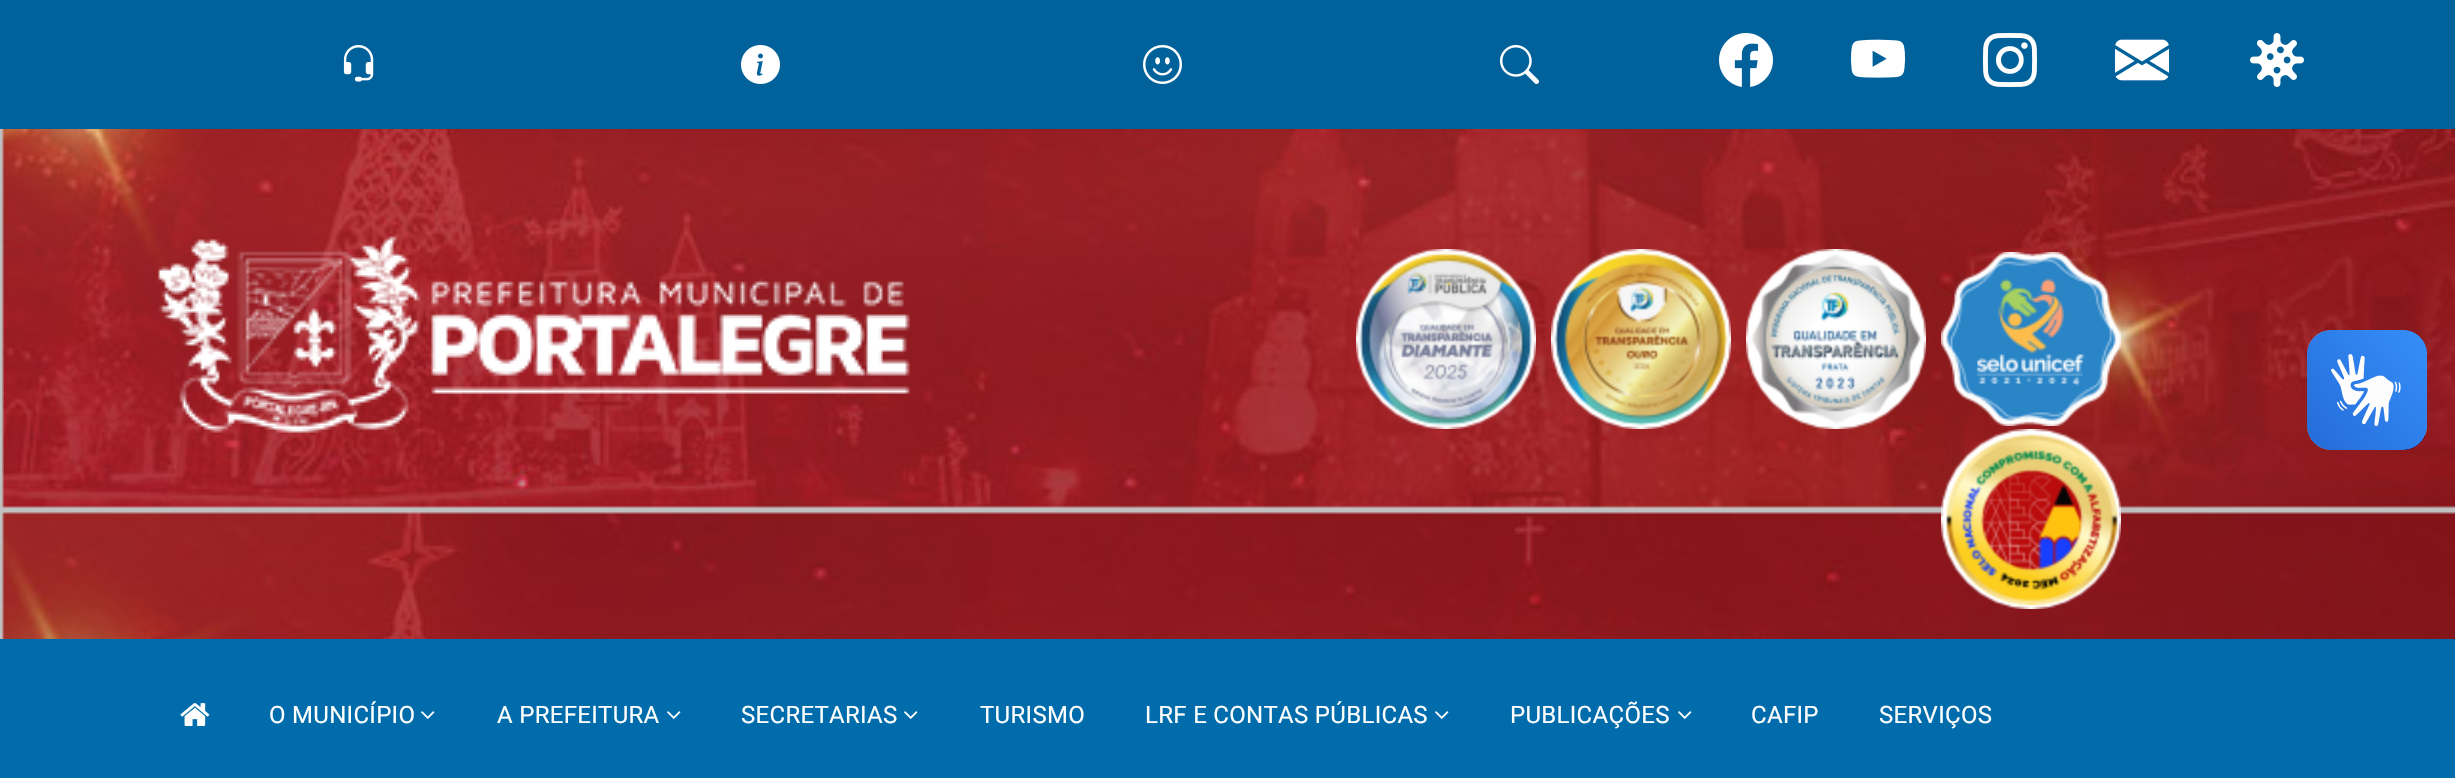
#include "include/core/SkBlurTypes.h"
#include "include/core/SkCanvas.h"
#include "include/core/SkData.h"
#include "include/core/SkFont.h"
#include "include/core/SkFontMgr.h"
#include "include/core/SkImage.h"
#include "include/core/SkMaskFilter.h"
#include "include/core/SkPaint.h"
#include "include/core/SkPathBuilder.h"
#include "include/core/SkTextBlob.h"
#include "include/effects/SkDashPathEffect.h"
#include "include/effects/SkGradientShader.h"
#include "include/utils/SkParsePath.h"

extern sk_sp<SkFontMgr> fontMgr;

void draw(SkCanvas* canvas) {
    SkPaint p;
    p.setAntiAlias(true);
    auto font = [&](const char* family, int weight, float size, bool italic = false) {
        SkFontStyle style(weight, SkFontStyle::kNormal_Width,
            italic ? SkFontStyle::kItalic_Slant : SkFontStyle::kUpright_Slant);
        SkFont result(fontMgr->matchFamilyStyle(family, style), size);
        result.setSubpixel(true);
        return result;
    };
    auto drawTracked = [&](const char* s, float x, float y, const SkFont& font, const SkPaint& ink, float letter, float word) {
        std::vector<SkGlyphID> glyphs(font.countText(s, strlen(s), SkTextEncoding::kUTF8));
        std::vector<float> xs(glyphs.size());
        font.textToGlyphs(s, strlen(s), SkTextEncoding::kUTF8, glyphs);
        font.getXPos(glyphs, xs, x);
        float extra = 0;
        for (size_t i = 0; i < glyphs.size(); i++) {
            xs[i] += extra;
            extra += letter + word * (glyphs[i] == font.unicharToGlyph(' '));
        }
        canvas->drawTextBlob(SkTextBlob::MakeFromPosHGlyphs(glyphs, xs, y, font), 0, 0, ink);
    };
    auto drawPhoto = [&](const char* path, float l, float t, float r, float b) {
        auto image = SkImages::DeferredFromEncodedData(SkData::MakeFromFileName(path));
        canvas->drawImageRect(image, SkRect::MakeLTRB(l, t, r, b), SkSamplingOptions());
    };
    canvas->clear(0xFFFFFFFF);
    drawPhoto("media/3.png", 0, 129, 2455, 639);
    drawPhoto("media/1.png", 2307, 330, 2427, 450);
    drawPhoto("media/2.png", 2307, 330, 2427, 450);
    p.setColor(0xFF00619B);
    canvas->drawRect(SkRect::MakeLTRB(0, 0, 2455, 129), p);
    drawPhoto("media/4.png", 343, 45, 374, 82);
    drawPhoto("media/5.png", 741, 45, 780, 84);
    drawPhoto("media/6.png", 1143, 45, 1182, 84);
    drawPhoto("media/7.png", 1499, 45, 1539, 84);
    drawPhoto("media/8.png", 1719, 33, 1773, 87);
    drawPhoto("media/9.png", 1851, 39, 1905, 78);
    drawPhoto("media/10.png", 1983, 33, 2037, 87);
    drawPhoto("media/11.png", 2115, 39, 2169, 81);
    drawPhoto("media/12.png", 2250, 33, 2304, 87);
    drawPhoto("media/13.png", 158, 236, 910, 433);
    drawPhoto("media/14.png", 1356, 249, 1536, 429);
    drawPhoto("media/15.png", 1551, 249, 1731, 429);
    drawPhoto("media/16.png", 1746, 249, 1926, 429);
    drawPhoto("media/17.png", 1941, 252, 2121, 426);
    drawPhoto("media/18.png", 1941, 429, 2121, 609);
    p.setColor(0xFF006CAB);
    canvas->drawRect(SkRect::MakeLTRB(0, 639, 2455, 778), p);
    drawPhoto("media/19.png", 180, 703, 210, 726);
    auto font1 = font("Roboto", 400, 24);
    p.setColor(0xFFFFFFFF);
    drawTracked("O MUNICÍPIO", 269, 723, font1, p, 0.3f, 0);
    drawPhoto("media/20.png", 421, 711, 435, 719);
    drawTracked("A PREFEITURA", 497, 723, font1, p, 0.3f, 0);
    drawPhoto("media/20.png", 667, 711, 681, 719);
    drawTracked("SECRETARIAS", 741, 723, font1, p, 0.3f, 0);
    drawPhoto("media/20.png", 904, 711, 918, 719);
    drawTracked("TURISMO", 980, 723, font1, p, 0.3f, 0);
    drawTracked("LRF E CONTAS PÚBLICAS", 1145, 723, font1, p, 0.3f, 0);
    drawPhoto("media/20.png", 1435, 711, 1449, 719);
    drawTracked("PUBLICAÇÕES", 1510, 723, font1, p, 0.3f, 0);
    drawPhoto("media/20.png", 1678, 711, 1692, 719);
    drawTracked("CAFIP", 1751, 723, font1, p, 0.3f, 0);
    drawTracked("SERVIÇOS", 1879, 723, font1, p, 0.3f, 0);
}
